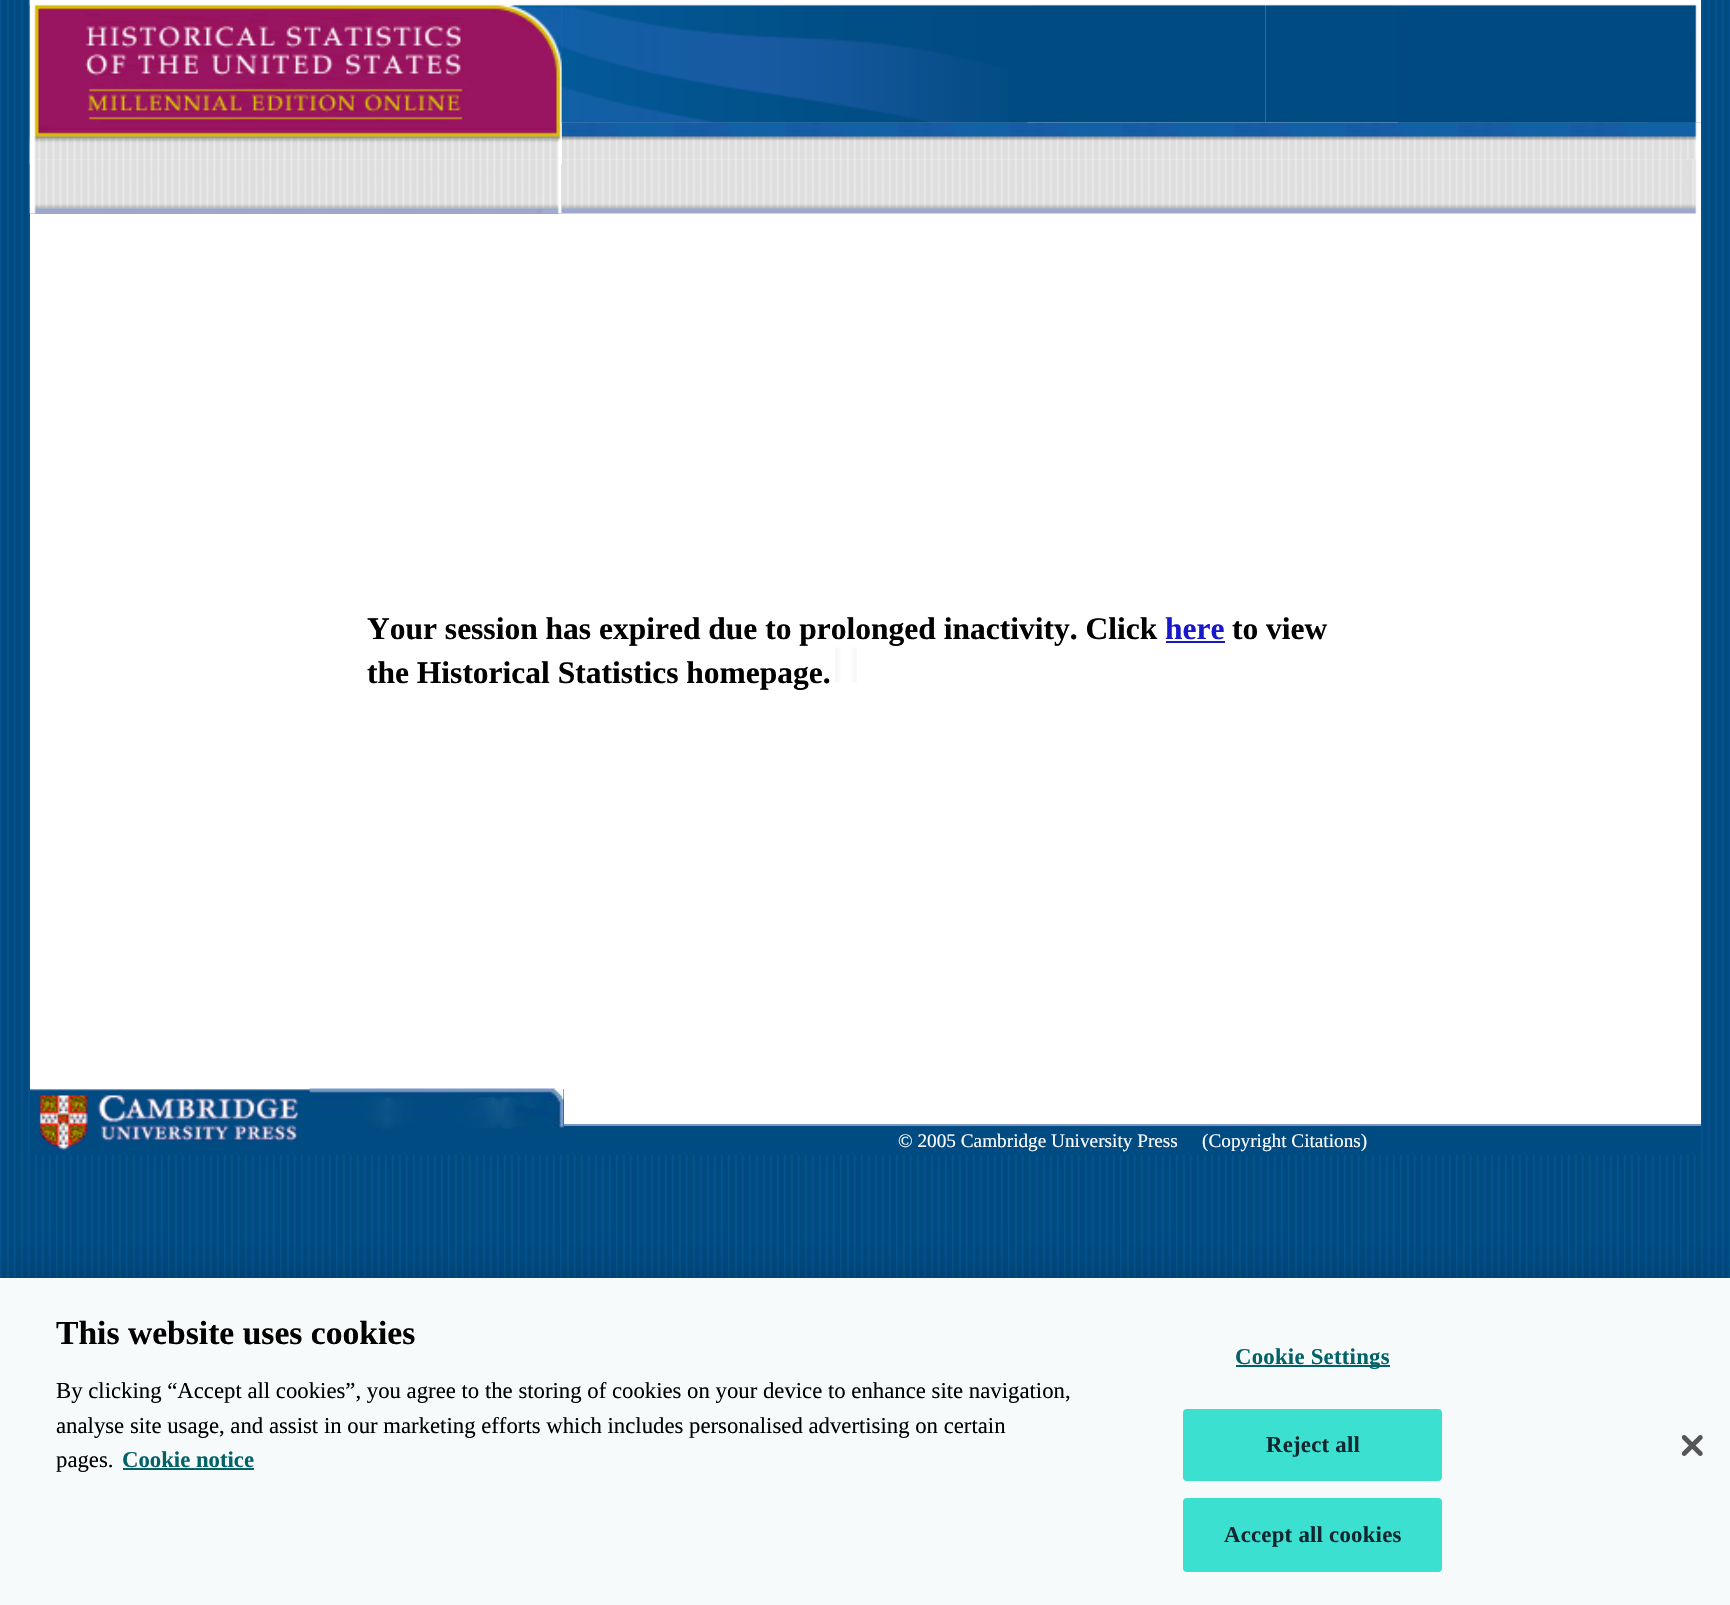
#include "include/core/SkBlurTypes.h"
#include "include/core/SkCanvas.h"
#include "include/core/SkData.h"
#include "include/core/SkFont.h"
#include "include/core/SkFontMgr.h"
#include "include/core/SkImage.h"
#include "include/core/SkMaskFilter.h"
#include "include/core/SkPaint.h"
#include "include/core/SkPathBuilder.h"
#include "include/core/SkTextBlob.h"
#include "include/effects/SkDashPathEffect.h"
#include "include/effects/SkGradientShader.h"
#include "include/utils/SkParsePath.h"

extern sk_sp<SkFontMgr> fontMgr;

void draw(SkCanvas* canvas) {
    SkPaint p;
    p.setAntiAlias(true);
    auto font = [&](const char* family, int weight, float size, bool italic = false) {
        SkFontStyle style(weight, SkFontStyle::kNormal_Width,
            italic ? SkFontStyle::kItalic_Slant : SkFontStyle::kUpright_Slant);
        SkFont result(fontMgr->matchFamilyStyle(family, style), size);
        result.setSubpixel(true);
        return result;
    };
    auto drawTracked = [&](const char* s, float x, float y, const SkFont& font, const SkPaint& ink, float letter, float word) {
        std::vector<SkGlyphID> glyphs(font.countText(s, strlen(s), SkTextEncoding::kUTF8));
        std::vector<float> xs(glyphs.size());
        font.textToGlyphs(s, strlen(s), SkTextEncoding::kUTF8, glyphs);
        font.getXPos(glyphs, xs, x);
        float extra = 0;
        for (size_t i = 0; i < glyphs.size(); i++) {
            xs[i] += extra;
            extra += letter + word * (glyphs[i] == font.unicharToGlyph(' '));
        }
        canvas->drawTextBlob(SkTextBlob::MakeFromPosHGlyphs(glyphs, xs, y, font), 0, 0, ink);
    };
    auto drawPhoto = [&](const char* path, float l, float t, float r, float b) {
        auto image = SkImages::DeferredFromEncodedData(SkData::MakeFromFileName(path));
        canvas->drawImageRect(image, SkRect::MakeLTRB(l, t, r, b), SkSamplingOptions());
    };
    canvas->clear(0xFFFFFFFF);
    drawPhoto("media/1.png", 0, 0, 1730, 1278);
    p.setColor(0xFFFFFFFF);
    canvas->drawRect(SkRect::MakeLTRB(30, 0, 1701, 1124), p);
    drawPhoto("media/2.png", 29, 0, 562, 214);
    drawPhoto("media/4.png", 29, 159, 562, 214);
    drawPhoto("media/5.png", 561, 4, 1266, 123);
    drawPhoto("media/7.png", 1265, 4, 1701, 123);
    drawPhoto("media/9.png", 561, 122, 1701, 160);
    drawPhoto("media/11.png", 561, 159, 1687, 214);
    drawPhoto("media/3.png", 29, 0, 562, 160);
    drawPhoto("media/6.png", 561, 5, 1028, 123);
    drawPhoto("media/10.png", 1648, 122, 1701, 160);
    drawPhoto("media/8.png", 1398, 4, 1701, 123);
    drawPhoto("media/12.png", 1687, 159, 1701, 214);
    auto font1 = font("Liberation Serif", 700, 31.5f);
    p.setColor(0xFF000000);
    canvas->drawString("Your session has expired due to prolonged inactivity. Click", 367, 639, font1, p);
    p.setColor(0xFF1818CB);
    canvas->drawString("here", 1165, 639, font1, p);
    canvas->drawRect(SkRect::MakeLTRB(1166, 641, 1225, 643), p);
    p.setColor(0xFF000000);
    canvas->drawString("to view", 1232, 639, font1, p);
    canvas->drawString("the Historical Statistics homepage.", 367, 683, font1, p);
    drawPhoto("media/13.png", 835, 647, 857, 683);
    p.setColor(0xFF004B82);
    canvas->drawRect(SkRect::MakeLTRB(30, 1091, 310, 1155), p);
    p.setColor(0xFF7A96C5);
    canvas->drawRect(SkRect::MakeLTRB(30, 1089, 310, 1091), p);
    drawPhoto("media/14.png", 30, 1090, 310, 1151);
    p.setColor(0xFF004B82);
    canvas->drawRect(SkRect::MakeLTRB(310, 1089, 564, 1155), p);
    drawPhoto("media/15.png", 309, 1088, 564, 1131);
    canvas->drawRect(SkRect::MakeLTRB(565, 1126, 1700, 1155), p);
    p.setColor(0xFF7A96C5);
    canvas->drawRect(SkRect::MakeLTRB(564, 1124, 1701, 1126), p);
    auto font2 = font("Liberation Serif", 400, 19.25f);
    p.setColor(0xFFFFFFFF);
    canvas->drawString("© 2005 Cambridge University Press", 898, 1147, font2, p);
    canvas->drawString("(Copyright Citations)", 1202, 1147, font2, p);
    p.setColor(0x33000000);
    p.setMaskFilter(SkMaskFilter::MakeBlur(kNormal_SkBlurStyle, 16));
    canvas->drawRect(SkRect::MakeLTRB(0, 1278, 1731, 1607), p);
    p.setMaskFilter(nullptr);
    p.setColor(0xFFF7FAFA);
    canvas->drawRect(SkRect::MakeLTRB(0, 1278, 1730, 1605), p);
    auto font3 = font("Liberation Serif", 700, 33.6f);
    p.setColor(0xFF000000);
    canvas->drawString("This website uses cookies", 56, 1344, font3, p);
    auto font4 = font("Liberation Serif", 400, 22.75f);
    {
        const struct { const char* s; float x, y; } items[] = {
            {"By clicking “Accept all cookies”, you agree to the storing of cookies on your device to enhance site navigation,", 56, 1398},
            {"analyse site usage, and assist in our marketing efforts which includes personalised advertising on certain", 56, 1433},
            {"pages.", 56, 1467},
        };
        for (auto [s, x, y] : items) {
            canvas->drawString(s, x, y, font4, p);
        }
    }
    auto font5 = font("Liberation Serif", 700, 22.75f);
    p.setColor(0xFF036268);
    canvas->drawString("Cookie notice", 122, 1467, font5, p);
    canvas->drawRect(SkRect::MakeLTRB(123, 1468, 254, 1470), p);
    canvas->drawRect(SkRect::MakeLTRB(1236, 1365, 1390, 1367), p);
    drawTracked("Cookie Settings", 1235, 1364, font5, p, 0.25f, 0);
    p.setColor(0xFF3BE0D0);
    canvas->drawRoundRect(SkRect::MakeLTRB(1184, 1410, 1441, 1480), 3, 3, p);
    p.setStyle(SkPaint::kStroke_Style);
    p.setStrokeWidth(2);
    canvas->drawRoundRect(SkRect::MakeLTRB(1184, 1410, 1441, 1480), 3, 3, p);
    p.setStyle(SkPaint::kFill_Style);
    p.setColor(0xFF112730);
    drawTracked("Reject all", 1266, 1452, font5, p, 0.25f, 0);
    p.setColor(0xFF3BE0D0);
    canvas->drawRoundRect(SkRect::MakeLTRB(1184, 1499, 1441, 1571), 3, 3, p);
    p.setStyle(SkPaint::kStroke_Style);
    canvas->drawRoundRect(SkRect::MakeLTRB(1184, 1499, 1441, 1571), 3, 3, p);
    p.setStyle(SkPaint::kFill_Style);
    p.setColor(0xFF112730);
    drawTracked("Accept all cookies", 1224, 1542, font5, p, 0.25f, 0);
    drawPhoto("media/16.png", 1682, 1435, 1703, 1456);
}
